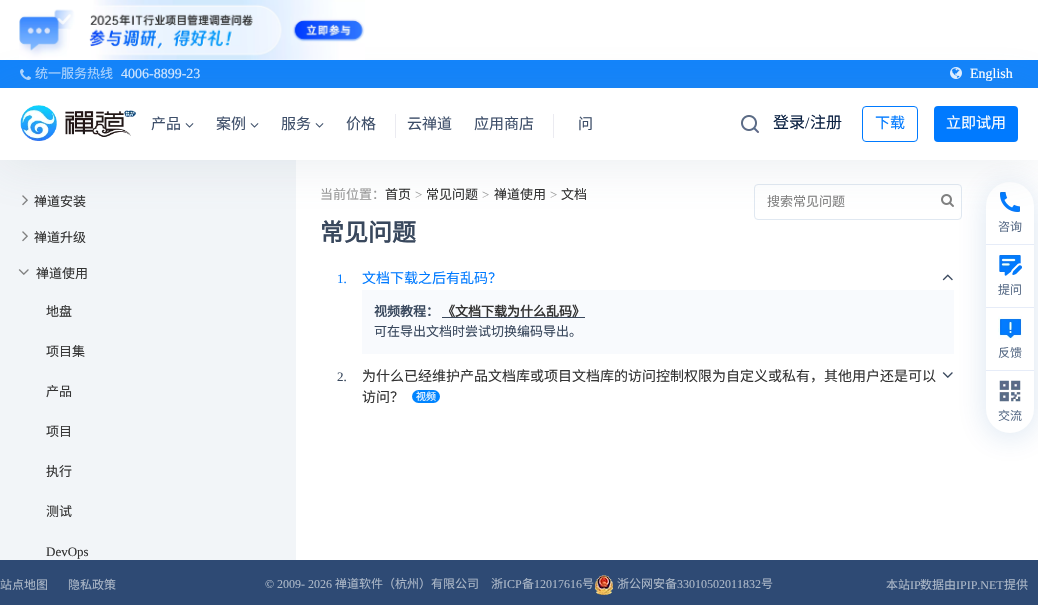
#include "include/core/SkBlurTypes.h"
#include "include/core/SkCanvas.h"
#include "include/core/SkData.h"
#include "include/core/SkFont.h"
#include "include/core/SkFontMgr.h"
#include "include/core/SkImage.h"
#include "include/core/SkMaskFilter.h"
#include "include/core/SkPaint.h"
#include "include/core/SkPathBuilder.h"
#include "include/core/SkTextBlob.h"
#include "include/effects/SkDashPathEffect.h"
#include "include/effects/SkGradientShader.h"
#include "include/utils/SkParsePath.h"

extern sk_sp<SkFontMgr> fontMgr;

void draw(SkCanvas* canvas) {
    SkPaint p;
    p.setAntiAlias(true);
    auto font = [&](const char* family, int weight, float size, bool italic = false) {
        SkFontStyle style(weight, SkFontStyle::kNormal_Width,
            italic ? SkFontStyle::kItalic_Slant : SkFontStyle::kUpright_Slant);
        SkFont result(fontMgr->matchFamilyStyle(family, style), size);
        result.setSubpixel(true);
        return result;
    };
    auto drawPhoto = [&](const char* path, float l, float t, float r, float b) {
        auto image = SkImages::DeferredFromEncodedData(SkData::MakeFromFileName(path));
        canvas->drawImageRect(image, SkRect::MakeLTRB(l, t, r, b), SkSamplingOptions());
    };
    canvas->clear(0xFFFFFFFF);
    p.setColor(0xFF1183FB);
    canvas->drawRect(SkRect::MakeLTRB(0, 60, 1038, 88), p);
    p.setColor(0xFFF2F5F8);
    canvas->drawRect(SkRect::MakeLTRB(0, 160, 296, 560), p);
    drawPhoto("media/7.png", 22, 195, 28, 206);
    drawPhoto("media/7.png", 22, 231, 28, 242);
    p.setStyle(SkPaint::kStroke_Style);
    p.setStrokeWidth(1);
    p.setColor(0xFFE0E8F1);
    canvas->drawRoundRect(SkRect::MakeLTRB(754.5f, 184.5f, 961.5f, 219.5f), 3.5f, 3.5f, p);
    drawPhoto("media/10.png", 942, 274, 953, 281);
    p.setStyle(SkPaint::kFill_Style);
    p.setColor(0xFFF8FAFD);
    canvas->drawRect(SkRect::MakeLTRB(362, 290, 954, 354), p);
    drawPhoto("media/11.png", 942, 372, 953, 378);
    p.setColor(0x260F52A0);
    p.setMaskFilter(SkMaskFilter::MakeBlur(kNormal_SkBlurStyle, 15));
    canvas->drawRoundRect(SkRect::MakeLTRB(986, 186, 1034, 437), 24, 24, p);
    p.setMaskFilter(nullptr);
    drawPhoto("media/9.png", 941, 194, 954, 207);
    p.setColor(0xFFFFFFFF);
    canvas->drawRoundRect(SkRect::MakeLTRB(986, 182, 1034, 433), 24, 24, p);
    drawPhoto("media/13.png", 1000, 192, 1020, 212);
    canvas->save();
    canvas->clipPath(SkPathBuilder(SkPathFillType::kEvenOdd).moveTo(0, 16).lineTo(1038, 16).lineTo(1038, 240).lineTo(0, 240).close().moveTo(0, 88).lineTo(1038, 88).lineTo(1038, 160).lineTo(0, 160).close().detach(), true);
    p.setColor(0x2674889A);
    p.setMaskFilter(SkMaskFilter::MakeBlur(kNormal_SkBlurStyle, 25));
    canvas->drawRect(SkRect::MakeLTRB(0, 92, 1038, 164), p);
    p.setMaskFilter(nullptr);
    canvas->restore();
    drawPhoto("media/1.png", 19, 0, 365, 60);
    drawPhoto("media/2.png", 20, 69, 31, 80);
    auto font1 = font("Noto Sans CJK SC", 400, 13);
    p.setColor(0xFFAAD2FD);
    canvas->drawString("统一服务热线", 35, 78, font1, p);
    auto font2 = font("Liberation Serif", 400, 14);
    p.setColor(0xFFD0E6FE);
    canvas->drawString("4006-8899-23", 121, 78, font2, p);
    drawPhoto("media/3.png", 950, 67, 962, 79);
    p.setColor(0xFFFFFFFF);
    canvas->drawString("English", 970, 78, font2, p);
    drawPhoto("media/4.png", 20, 105, 136, 141);
    auto font3 = font("Noto Sans CJK SC", 400, 16);
    p.setColor(0xFF0C2243);
    canvas->drawString("登录", 773, 128, font3, p);
    auto font4 = font("Liberation Serif", 400, 16);
    canvas->drawString("/", 805, 128, font4, p);
    canvas->drawString("注册", 810, 128, font3, p);
    auto font5 = font("Noto Sans CJK SC", 400, 15);
    p.setColor(0xFF3D4E69);
    canvas->drawString("产品", 151, 129, font5, p);
    drawPhoto("media/5.png", 185, 123, 194, 128);
    canvas->drawString("案例", 216, 129, font5, p);
    drawPhoto("media/5.png", 250, 123, 259, 128);
    canvas->drawString("服务", 281, 129, font5, p);
    drawPhoto("media/5.png", 315, 123, 324, 128);
    canvas->drawString("价格", 346, 129, font5, p);
    p.setColor(0xFFEBEBF1);
    canvas->drawRect(SkRect::MakeLTRB(395, 114, 396, 138), p);
    p.setColor(0xFF3D4E69);
    canvas->drawString("云禅道", 407, 129, font5, p);
    canvas->drawString("应用商店", 474, 129, font5, p);
    p.setColor(0xFFEBEBF1);
    canvas->drawRect(SkRect::MakeLTRB(553, 114, 554, 138), p);
    p.setColor(0xFF3D4E69);
    canvas->drawString("问", 578, 129, font5, p);
    p.setStyle(SkPaint::kStroke_Style);
    p.setColor(0xFF007AFF);
    canvas->drawRoundRect(SkRect::MakeLTRB(862.5f, 106.5f, 917.5f, 141.5f), 3.5f, 3.5f, p);
    p.setStyle(SkPaint::kFill_Style);
    canvas->drawString("下载", 875, 128, font5, p);
    canvas->drawRoundRect(SkRect::MakeLTRB(934, 106, 1018, 142), 4, 4, p);
    p.setColor(0xFFFFFFFF);
    canvas->drawString("立即试用", 946, 128, font5, p);
    drawPhoto("media/6.png", 741, 115, 759, 133);
    p.setColor(0xFF333333);
    canvas->drawString("禅道安装", 34, 206, font1, p);
    canvas->drawString("禅道升级", 34, 242, font1, p);
    drawPhoto("media/8.png", 18, 269, 29, 275);
    {
        const struct { const char* s; float x, y; } items[] = {
            {"禅道使用", 36, 278},
            {"地盘", 46, 316},
            {"项目集", 46, 356},
            {"产品", 46, 396},
            {"项目", 46, 436},
            {"执行", 46, 476},
            {"测试", 46, 516},
        };
        for (auto [s, x, y] : items) {
            canvas->drawString(s, x, y, font1, p);
        }
    }
    auto font6 = font("Liberation Serif", 400, 13);
    canvas->drawString("DevOps", 46, 556, font6, p);
    p.setColor(0xFF999999);
    canvas->drawString("当前位置：", 320, 199, font1, p);
    p.setColor(0xFF333333);
    canvas->drawString("首页", 385, 199, font1, p);
    p.setColor(0xFF999999);
    canvas->drawString(">", 415, 199, font6, p);
    p.setColor(0xFF333333);
    canvas->drawString("常见问题", 426, 199, font1, p);
    p.setColor(0xFF999999);
    canvas->drawString(">", 482, 199, font6, p);
    p.setColor(0xFF333333);
    canvas->drawString("禅道使用", 494, 199, font1, p);
    p.setColor(0xFF999999);
    canvas->drawString(">", 550, 199, font6, p);
    p.setColor(0xFF333333);
    canvas->drawString("文档", 561, 199, font1, p);
    p.setColor(0xFF808080);
    canvas->drawString("搜索常见问题", 767, 206, font1, p);
    auto font7 = font("Noto Sans CJK SC", 700, 24);
    p.setColor(0xFF39485D);
    canvas->drawString("常见问题", 320, 241, font7, p);
    p.setColor(0xFF007AFF);
    canvas->drawString("1.", 337, 283, font6, p);
    auto font8 = font("Noto Sans CJK SC", 400, 14);
    canvas->drawString("文档下载之后有乱码？", 362, 283, font8, p);
    auto font9 = font("Noto Sans CJK SC", 700, 13);
    p.setColor(0xFF39485D);
    canvas->drawString("视频教程：", 374, 316, font9, p);
    canvas->drawRect(SkRect::MakeLTRB(442, 317, 585, 318), p);
    p.setColor(0xFF333333);
    canvas->drawString("《文档下载为什么乱码》", 442, 316, font9, p);
    p.setColor(0xFF39485D);
    canvas->drawString("可在导出文档时尝试切换编码导出。", 374, 336, font1, p);
    canvas->drawString("2.", 337, 381, font6, p);
    p.setColor(0xFF333333);
    canvas->drawString("为什么已经维护产品文档库或项目文档库的访问控制权限为自定义或私有，其他用户还是可以", 362, 381, font8, p);
    canvas->drawString("访问？", 362, 402, font8, p);
    p.setColor(0xFF0084FF);
    canvas->drawRoundRect(SkRect::MakeLTRB(412, 390, 440, 403), 6.5f, 6.5f, p);
    auto font10 = font("Noto Sans CJK SC", 400, 10);
    p.setColor(0xFFFFFFFF);
    canvas->drawString("视频", 416, 400, font10, p);
    p.setColor(0xFF2E4A74);
    canvas->drawRect(SkRect::MakeLTRB(0, 560, 1038, 605), p);
    auto font11 = font("Noto Sans CJK SC", 400, 12);
    p.setColor(0xFFABB7C7);
    canvas->drawString("站点地图", 0, 589, font11, p);
    canvas->drawString("隐私政策", 68, 589, font11, p);
    auto font12 = font("Liberation Serif", 400, 12);
    canvas->drawString("© 2009- 2026", 265, 588, font12, p);
    canvas->drawString("禅道软件（杭州）有限公司", 335, 588, font11, p);
    canvas->drawString("浙", 491, 588, font11, p);
    canvas->drawString("ICP", 503, 588, font12, p);
    canvas->drawString("备", 522, 588, font11, p);
    canvas->drawString("12017616", 534, 588, font12, p);
    canvas->drawString("号", 582, 588, font11, p);
    drawPhoto("media/12.png", 595, 575, 613, 595);
    canvas->drawString("浙公网安备", 617, 588, font11, p);
    canvas->drawString("33010502011832", 677, 588, font12, p);
    canvas->drawString("号", 761, 588, font11, p);
    canvas->drawString("本站", 886, 589, font11, p);
    canvas->drawString("IP", 910, 589, font12, p);
    canvas->drawString("数据由", 920, 589, font11, p);
    canvas->drawString("IPIP.NET", 956, 589, font12, p);
    canvas->drawString("提供", 1004, 589, font11, p);
    p.setColor(0xFFE6ECF8);
    canvas->drawRect(SkRect::MakeLTRB(986, 244, 1034, 245), p);
    p.setColor(0xFF5A6D88);
    canvas->drawString("咨询", 998, 231, font11, p);
    p.setColor(0xFFE6ECF8);
    canvas->drawRect(SkRect::MakeLTRB(986, 307, 1034, 308), p);
    drawPhoto("media/14.png", 999, 255, 1022, 276);
    p.setColor(0xFF5A6D88);
    canvas->drawString("提问", 998, 294, font11, p);
    p.setColor(0xFFE6ECF8);
    canvas->drawRect(SkRect::MakeLTRB(986, 370, 1034, 371), p);
    drawPhoto("media/15.png", 998, 316, 1022, 339);
    p.setColor(0xFF5A6D88);
    canvas->drawString("反馈", 998, 357, font11, p);
    drawPhoto("media/16.png", 999, 380, 1021, 402);
    canvas->drawString("交流", 998, 420, font11, p);
}
